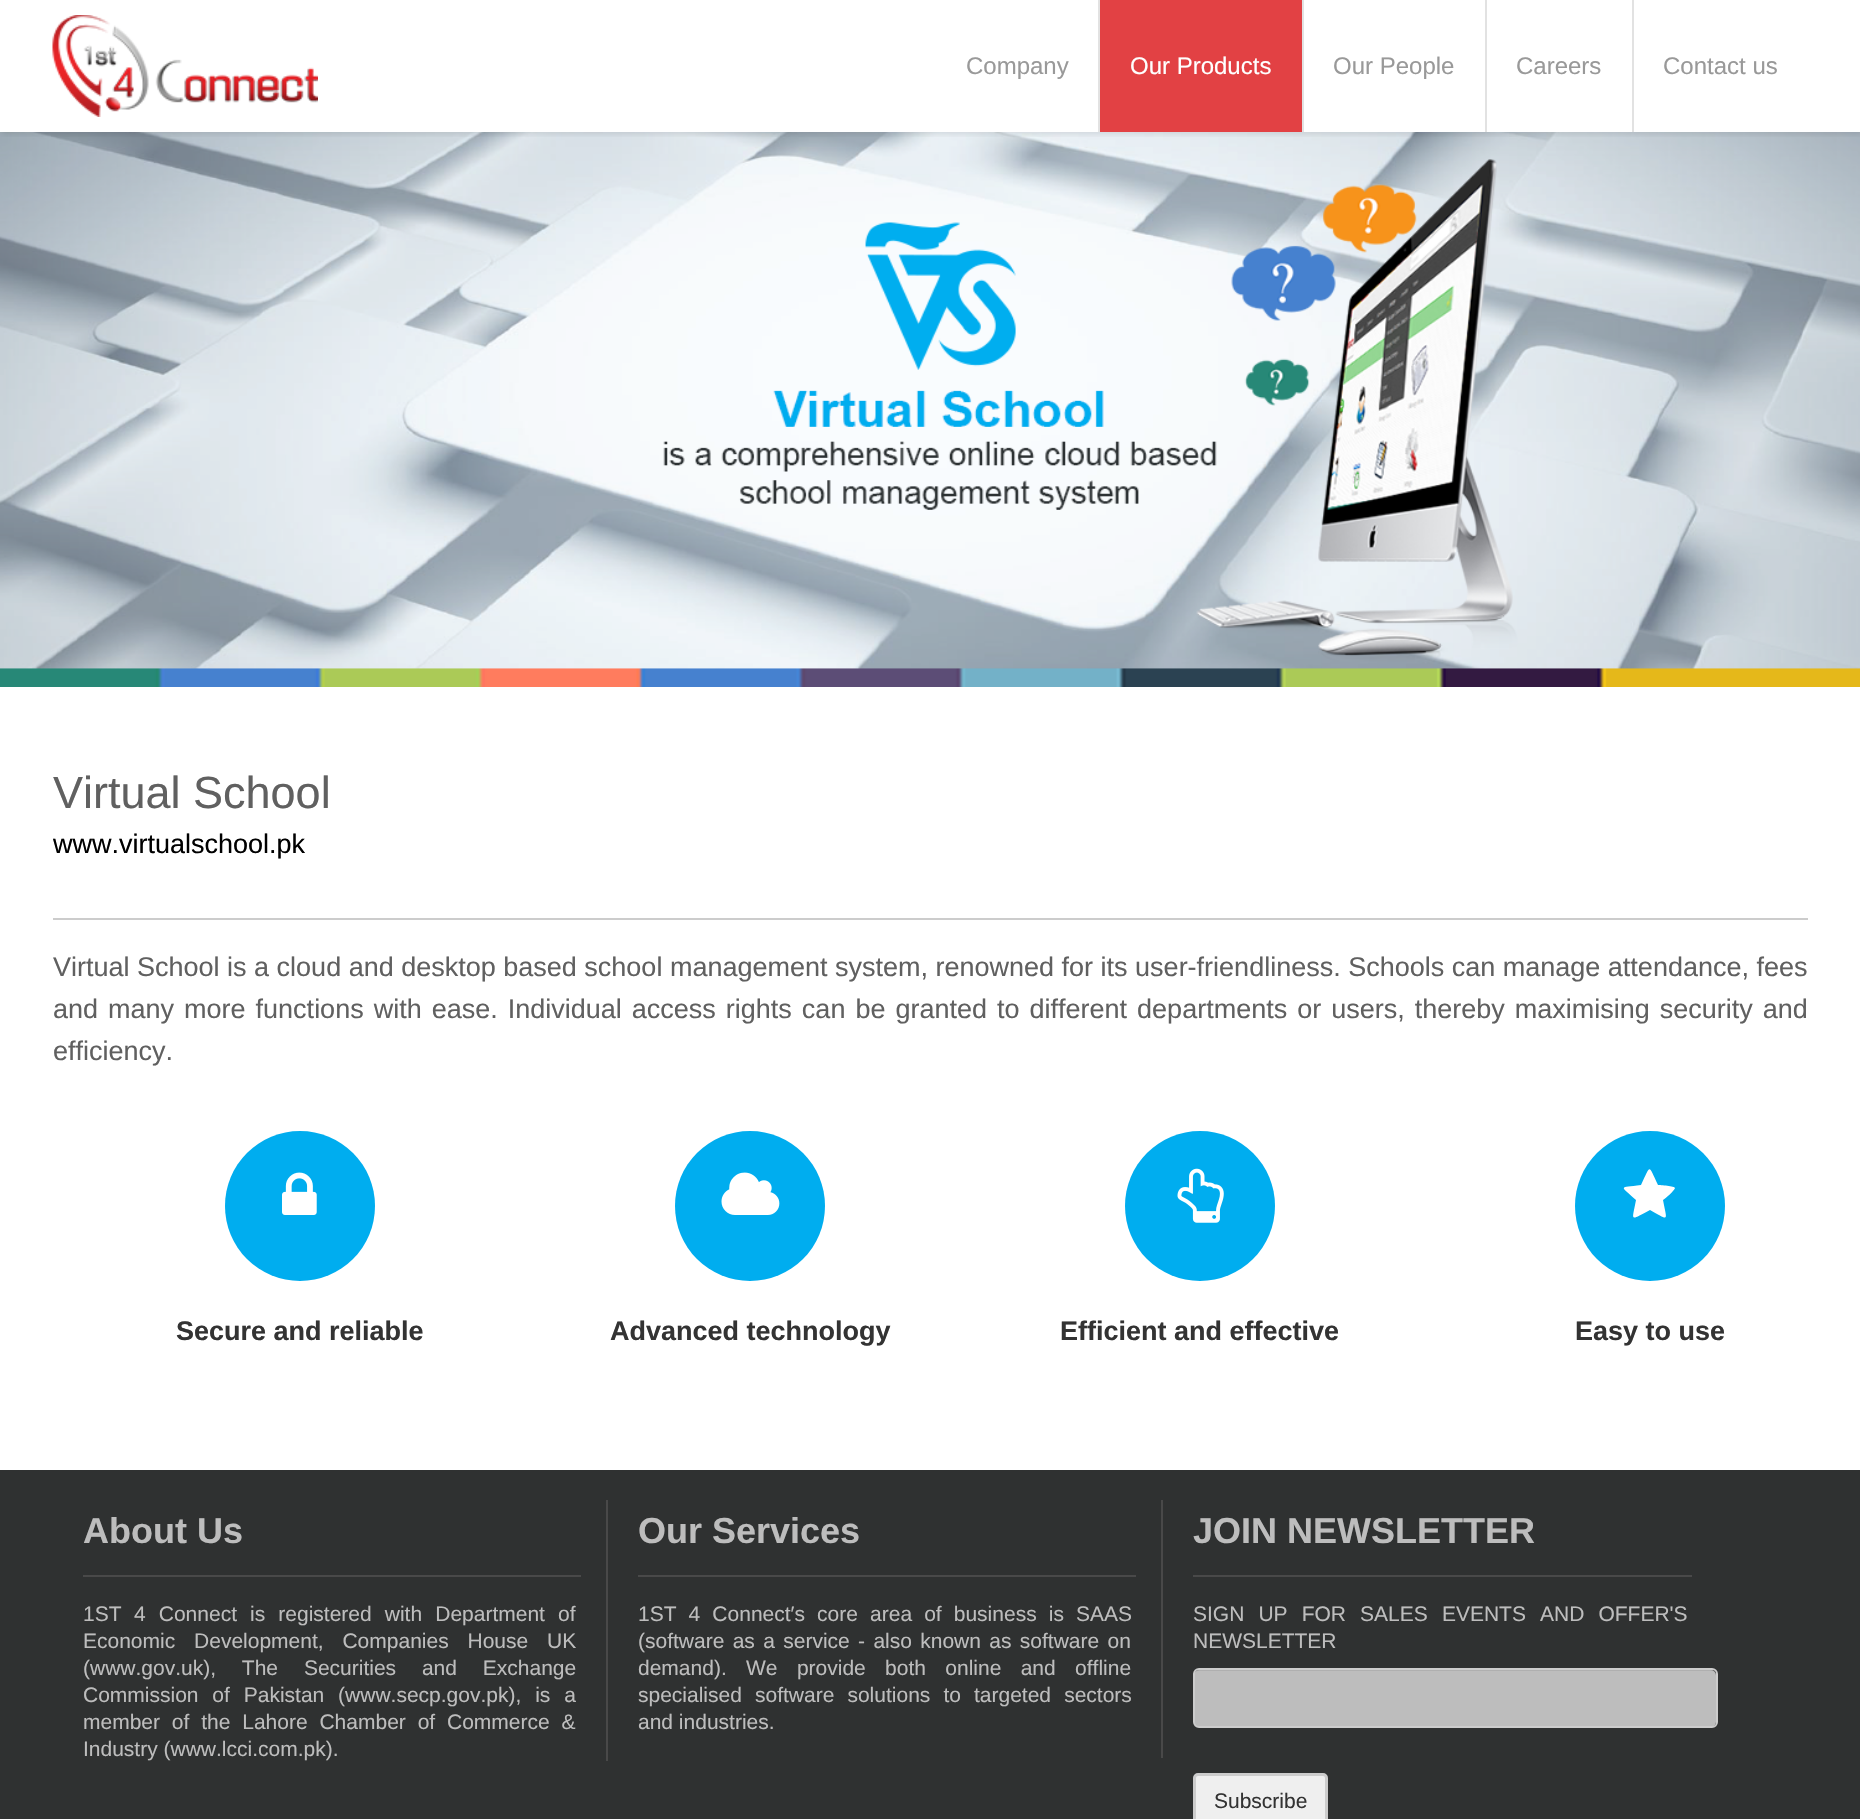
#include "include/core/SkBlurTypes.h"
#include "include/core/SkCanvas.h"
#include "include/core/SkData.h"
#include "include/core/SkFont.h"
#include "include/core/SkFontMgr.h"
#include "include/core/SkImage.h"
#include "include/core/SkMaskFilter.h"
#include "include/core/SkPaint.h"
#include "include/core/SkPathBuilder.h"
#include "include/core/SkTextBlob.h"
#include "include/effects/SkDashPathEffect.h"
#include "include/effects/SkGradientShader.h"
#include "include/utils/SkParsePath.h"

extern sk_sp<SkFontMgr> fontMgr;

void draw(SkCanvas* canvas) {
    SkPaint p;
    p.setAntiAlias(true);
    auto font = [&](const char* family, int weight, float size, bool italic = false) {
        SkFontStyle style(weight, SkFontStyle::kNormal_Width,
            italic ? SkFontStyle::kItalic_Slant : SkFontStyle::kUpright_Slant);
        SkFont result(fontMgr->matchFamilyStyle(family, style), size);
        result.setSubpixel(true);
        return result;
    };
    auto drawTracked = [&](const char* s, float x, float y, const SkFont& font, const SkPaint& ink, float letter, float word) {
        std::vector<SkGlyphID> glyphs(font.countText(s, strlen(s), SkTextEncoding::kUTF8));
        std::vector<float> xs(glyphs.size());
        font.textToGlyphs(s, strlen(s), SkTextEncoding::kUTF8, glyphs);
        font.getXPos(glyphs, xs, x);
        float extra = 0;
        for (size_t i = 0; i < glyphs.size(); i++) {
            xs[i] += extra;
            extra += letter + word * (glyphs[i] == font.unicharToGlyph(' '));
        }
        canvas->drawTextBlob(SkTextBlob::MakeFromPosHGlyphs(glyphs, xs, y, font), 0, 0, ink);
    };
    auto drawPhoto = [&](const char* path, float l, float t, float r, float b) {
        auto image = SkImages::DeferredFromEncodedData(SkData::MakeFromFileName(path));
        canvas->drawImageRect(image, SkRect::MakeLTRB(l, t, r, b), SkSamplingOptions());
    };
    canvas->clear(0xFFFFFFFF);
    drawPhoto("media/2.png", 0, 132, 1860, 687);
    canvas->save();
    canvas->clipRect(SkRect::MakeLTRB(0, 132, 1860, 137));
    p.setColor(0x1A000000);
    p.setMaskFilter(SkMaskFilter::MakeBlur(kNormal_SkBlurStyle, 3));
    canvas->drawRect(SkRect::MakeLTRB(2, 2, 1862, 134), p);
    p.setMaskFilter(nullptr);
    canvas->restore();
    drawPhoto("media/1.png", 52, 15, 318, 117);
    p.setColor(0xFFE2E2E2);
    canvas->drawRect(SkRect::MakeLTRB(1098, 0, 1100, 132), p);
    auto font1 = font("Liberation Sans", 400, 24);
    p.setColor(0xFF999999);
    canvas->drawString("Company", 966, 74, font1, p);
    p.setColor(0xFFE24144);
    canvas->drawRect(SkRect::MakeLTRB(1100, 0, 1302, 132), p);
    p.setColor(0xFFE2E2E2);
    canvas->drawRect(SkRect::MakeLTRB(1302, 0, 1304, 132), p);
    p.setColor(0xFFFFFFFF);
    canvas->drawString("Our Products", 1130, 74, font1, p);
    p.setColor(0xFFE2E2E2);
    canvas->drawRect(SkRect::MakeLTRB(1485, 0, 1487, 132), p);
    p.setColor(0xFF999999);
    canvas->drawString("Our People", 1333, 74, font1, p);
    p.setColor(0xFFE2E2E2);
    canvas->drawRect(SkRect::MakeLTRB(1632, 0, 1634, 132), p);
    p.setColor(0xFF999999);
    canvas->drawString("Careers", 1516, 74, font1, p);
    canvas->drawString("Contact us", 1663, 74, font1, p);
    auto font2 = font("Liberation Sans", 400, 45);
    p.setColor(0xFF606060);
    canvas->drawString("Virtual School", 53, 808, font2, p);
    auto font3 = font("Liberation Sans", 400, 27);
    p.setColor(0xFF000000);
    canvas->drawString("www.virtualschool.pk", 53, 853, font3, p);
    p.setColor(0xFFCCCCCC);
    canvas->drawRect(SkRect::MakeLTRB(53, 918, 1808, 920), p);
    p.setColor(0xFF606060);
    canvas->drawString("Virtual School is a cloud and desktop based school management system, renowned for its user-friendliness. Schools can manage attendance, fees", 53, 976, font3, p);
    drawTracked("and many more functions with ease. Individual access rights can be granted to different departments or users, thereby maximising security and", 53, 1018, font3, p, 0, 2.5f);
    canvas->drawString("efficiency.", 53, 1060, font3, p);
    p.setColor(0xFF00ADEF);
    canvas->drawCircle(300, 1206, 75, p);
    drawPhoto("media/3.png", 282, 1172, 317, 1215);
    auto font4 = font("Liberation Sans", 700, 27);
    p.setColor(0xFF333333);
    canvas->drawString("Secure and reliable", 176, 1340, font4, p);
    p.setColor(0xFF00ADEF);
    canvas->drawCircle(750, 1206, 75, p);
    drawPhoto("media/4.png", 721, 1172, 780, 1215);
    p.setColor(0xFF333333);
    canvas->drawString("Advanced technology", 610, 1340, font4, p);
    p.setColor(0xFF00ADEF);
    canvas->drawCircle(1200, 1206, 75, p);
    drawPhoto("media/5.png", 1177, 1168, 1224, 1223);
    p.setColor(0xFF333333);
    canvas->drawString("Efficient and effective", 1060, 1340, font4, p);
    p.setColor(0xFF00ADEF);
    canvas->drawCircle(1650, 1206, 75, p);
    p.setColor(0xFFFFFFFF);
    canvas->drawPath(SkPathBuilder().moveTo(1675, 1188).cubicTo(1675, 1190, 1665, 1199, 1663, 1200).cubicTo(1667, 1222, 1670, 1221, 1650, 1210).cubicTo(1629, 1221, 1632, 1222, 1636, 1200).cubicTo(1620, 1185, 1618, 1188, 1641, 1185).cubicTo(1651, 1164, 1648, 1164, 1658, 1185).cubicTo(1660, 1185, 1675, 1186, 1675, 1188).close().detach(), p);
    p.setColor(0xFF333333);
    canvas->drawString("Easy to use", 1575, 1340, font4, p);
    {
        const struct { float l, t, r, b; SkColor color; } items[] = {
            {0, 1470, 1860, 1819, 0xFF2F3131},
            {606, 1500, 608, 1761, 0xFF494949},
            {83, 1575, 581, 1577, 0xFF494949},
        };
        for (auto [l, t, r, b, color] : items) {
            p.setColor(color);
            canvas->drawRect(SkRect::MakeLTRB(l, t, r, b), p);
        }
    }
    auto font5 = font("Liberation Sans", 700, 36);
    p.setColor(0xFFBDBDBD);
    canvas->drawString("About Us", 83, 1543, font5, p);
    auto font6 = font("Liberation Sans", 400, 21);
    canvas->drawString("1ST", 83, 1621, font6, p);
    drawTracked("4 Connect is registered with Department of", 134, 1621, font6, p, 0, 7.25f);
    drawTracked("Economic Development, Companies House UK", 83, 1648, font6, p, 0, 13);
    drawTracked("(www.gov.uk), The Securities and Exchange", 83, 1675, font6, p, 0, 20);
    drawTracked("Commission of Pakistan (www.secp.gov.pk), is a", 83, 1702, font6, p, 0, 8);
    drawTracked("member of the Lahore Chamber of Commerce &", 83, 1729, font6, p, 0, 6);
    canvas->drawString("Industry (www.lcci.com.pk).", 83, 1756, font6, p);
    p.setColor(0xFF494949);
    canvas->drawRect(SkRect::MakeLTRB(1161, 1500, 1163, 1758), p);
    canvas->drawRect(SkRect::MakeLTRB(638, 1575, 1136, 1577), p);
    p.setColor(0xFFBDBDBD);
    canvas->drawString("Our Services", 638, 1543, font5, p);
    drawTracked("1ST 4 Connect′s core area of business is SAAS", 638, 1621, font6, p, 0, 6.25f);
    drawTracked("(software as a service - also known as software on", 638, 1648, font6, p, 0, 2.5f);
    drawTracked("demand). We provide both online and offline", 638, 1675, font6, p, 0, 13.5f);
    drawTracked("specialised software solutions to targeted sectors", 638, 1702, font6, p, 0, 7.25f);
    canvas->drawString("and industries.", 638, 1729, font6, p);
    p.setColor(0xFF494949);
    canvas->drawRect(SkRect::MakeLTRB(1193, 1575, 1692, 1577), p);
    p.setColor(0xFFBDBDBD);
    canvas->drawString("JOIN NEWSLETTER", 1193, 1543, font5, p);
    drawTracked("SIGN UP FOR SALES EVENTS AND OFFER'S", 1193, 1621, font6, p, 0, 8.25f);
    canvas->drawString("NEWSLETTER", 1193, 1648, font6, p);
    canvas->drawRoundRect(SkRect::MakeLTRB(1194, 1670, 1716, 1727), 5, 5, p);
    p.setColor(0x12000000);
    canvas->drawPath(SkPathBuilder().moveTo(1198, 1671).lineTo(1712, 1671).cubicTo(1714, 1671, 1716, 1673, 1716, 1676).lineTo(1716, 1675).cubicTo(1716, 1672, 1714, 1670, 1711, 1670).lineTo(1199, 1670).cubicTo(1196, 1670, 1194, 1672, 1194, 1675).lineTo(1194, 1676).cubicTo(1194, 1673, 1196, 1671, 1198, 1671).close().detach(), p);
    p.setStyle(SkPaint::kStroke_Style);
    p.setStrokeWidth(2);
    p.setColor(0xFFCCCCCC);
    canvas->drawRoundRect(SkRect::MakeLTRB(1194, 1669, 1717, 1727), 5, 5, p);
    p.setStyle(SkPaint::kFill_Style);
    p.setColor(0xFFEFEFEF);
    canvas->drawRoundRect(SkRect::MakeLTRB(1194.5f, 1774.5f, 1326.5f, 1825.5f), 3.5f, 3.5f, p);
    p.setStyle(SkPaint::kStroke_Style);
    p.setStrokeWidth(3);
    p.setColor(0xFFCCCCCC);
    canvas->drawRoundRect(SkRect::MakeLTRB(1194.5f, 1774.5f, 1326.5f, 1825.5f), 3.5f, 3.5f, p);
    p.setStyle(SkPaint::kFill_Style);
    p.setColor(0xFF333333);
    canvas->drawString("Subscribe", 1214, 1808, font6, p);
}
